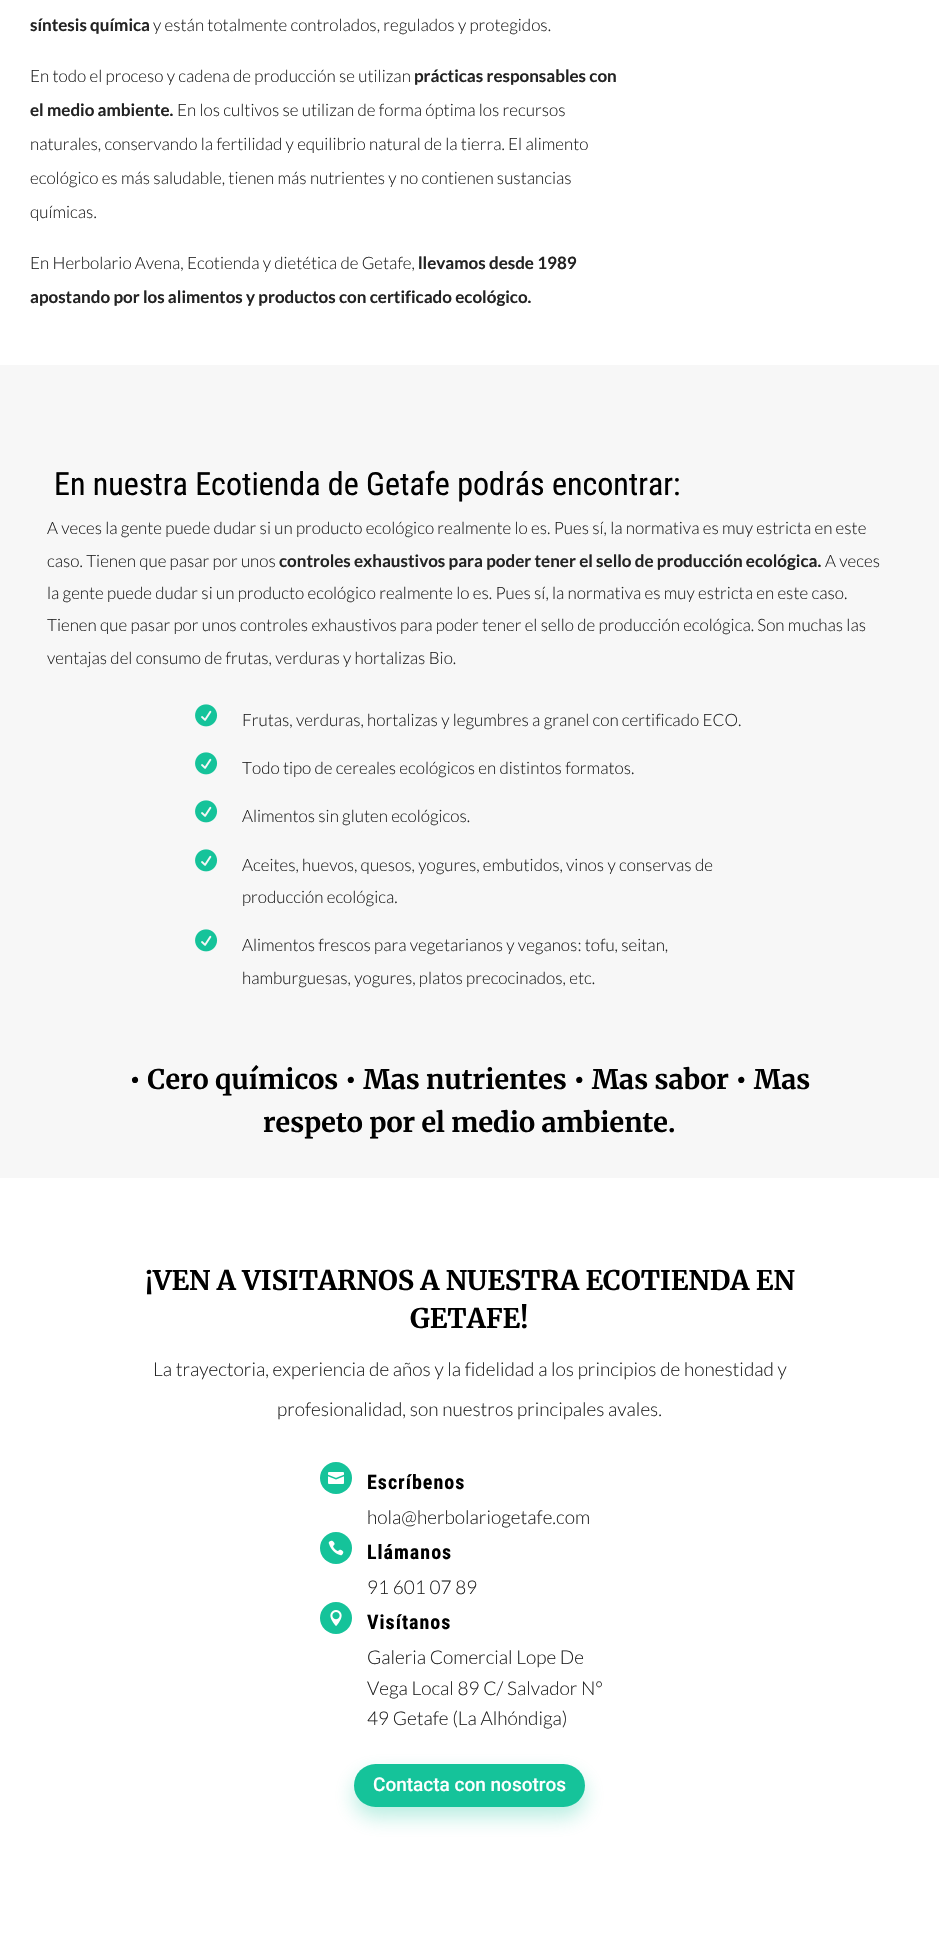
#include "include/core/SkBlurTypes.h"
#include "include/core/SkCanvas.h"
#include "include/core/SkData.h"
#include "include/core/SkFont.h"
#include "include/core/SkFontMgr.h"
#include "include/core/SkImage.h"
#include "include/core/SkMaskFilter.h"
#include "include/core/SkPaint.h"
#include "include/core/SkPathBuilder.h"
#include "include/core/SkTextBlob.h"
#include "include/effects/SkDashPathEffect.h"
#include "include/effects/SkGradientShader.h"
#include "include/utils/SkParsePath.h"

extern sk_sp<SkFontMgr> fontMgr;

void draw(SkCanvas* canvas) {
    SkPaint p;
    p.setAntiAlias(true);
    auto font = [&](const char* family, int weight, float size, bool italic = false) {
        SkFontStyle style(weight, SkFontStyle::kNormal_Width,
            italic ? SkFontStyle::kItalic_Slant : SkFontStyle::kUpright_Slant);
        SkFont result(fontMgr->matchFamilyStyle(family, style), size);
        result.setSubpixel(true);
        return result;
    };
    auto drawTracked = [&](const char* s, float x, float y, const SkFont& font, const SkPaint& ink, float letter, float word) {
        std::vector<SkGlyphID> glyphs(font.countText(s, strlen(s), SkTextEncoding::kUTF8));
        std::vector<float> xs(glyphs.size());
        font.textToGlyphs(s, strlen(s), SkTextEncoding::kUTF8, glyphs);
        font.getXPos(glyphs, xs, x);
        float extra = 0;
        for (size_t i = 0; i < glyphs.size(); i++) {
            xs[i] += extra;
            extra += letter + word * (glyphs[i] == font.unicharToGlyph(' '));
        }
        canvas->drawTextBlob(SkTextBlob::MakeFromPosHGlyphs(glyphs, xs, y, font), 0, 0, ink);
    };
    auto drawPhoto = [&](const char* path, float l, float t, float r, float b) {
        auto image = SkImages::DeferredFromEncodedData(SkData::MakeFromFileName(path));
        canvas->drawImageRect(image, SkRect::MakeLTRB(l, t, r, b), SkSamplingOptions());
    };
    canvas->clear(0xFFFFFFFF);
    auto font1 = font("Lato", 700, 17);
    p.setColor(0xFF232323);
    canvas->drawString("síntesis química", 30, 31, font1, p);
    auto font2 = font("Lato", 300, 17);
    canvas->drawString("y están totalmente controlados, regulados y protegidos.", 153, 31, font2, p);
    canvas->drawString("En todo el proceso y cadena de producción se utilizan", 30, 82, font2, p);
    canvas->drawString("prácticas responsables con", 414, 82, font1, p);
    canvas->drawString("el medio ambiente.", 30, 116, font1, p);
    {
        const struct { const char* s; float x, y; } items[] = {
            {"En los cultivos se utilizan de forma óptima los recursos", 177, 116},
            {"naturales, conservando la fertilidad y equilibrio natural de la tierra. El alimento", 30, 150},
            {"ecológico es más saludable, tienen más nutrientes y no contienen sustancias", 30, 184},
            {"químicas.", 30, 218},
            {"En Herbolario Avena, Ecotienda y dietética de Getafe,", 30, 269},
        };
        for (auto [s, x, y] : items) {
            canvas->drawString(s, x, y, font2, p);
        }
    }
    canvas->drawString("llevamos desde 1989", 418, 269, font1, p);
    canvas->drawString("apostando por los alimentos y productos con certificado ecológico.", 30, 303, font1, p);
    p.setColor(0xFFF7F7F7);
    canvas->drawRect(SkRect::MakeLTRB(0, 365, 939, 1178), p);
    auto font3 = font("Roboto Condensed", 400, 32);
    p.setColor(0xFF000000);
    canvas->drawString("En nuestra Ecotienda de Getafe podrás encontrar:", 54, 495, font3, p);
    p.setColor(0xFF232323);
    canvas->drawString("A veces la gente puede dudar si un producto ecológico realmente lo es. Pues sí, la normativa es muy estricta en este", 47, 534, font2, p);
    canvas->drawString("caso. Tienen que pasar por unos", 47, 567, font2, p);
    canvas->drawString("controles exhaustivos para poder tener el sello de producción ecológica.", 279, 567, font1, p);
    {
        const struct { const char* s; float x, y; } items[] = {
            {"A veces", 825, 567},
            {"la gente puede dudar si un producto ecológico realmente lo es. Pues sí, la normativa es muy estricta en este caso.", 47, 599},
            {"Tienen que pasar por unos controles exhaustivos para poder tener el sello de producción ecológica. Son muchas las", 47, 631},
            {"ventajas del consumo de frutas, verduras y hortalizas Bio.", 47, 664},
        };
        for (auto [s, x, y] : items) {
            canvas->drawString(s, x, y, font2, p);
        }
    }
    drawPhoto("media/1.png", 195, 704, 218, 727);
    canvas->drawString("Frutas, verduras, hortalizas y legumbres a granel con certificado ECO.", 242, 726, font2, p);
    drawPhoto("media/1.png", 195, 752, 218, 775);
    canvas->drawString("Todo tipo de cereales ecológicos en distintos formatos.", 242, 774, font2, p);
    drawPhoto("media/1.png", 195, 800, 218, 823);
    canvas->drawString("Alimentos sin gluten ecológicos.", 242, 822, font2, p);
    drawPhoto("media/1.png", 195, 849, 218, 872);
    canvas->drawString("Aceites, huevos, quesos, yogures, embutidos, vinos y conservas de", 242, 871, font2, p);
    canvas->drawString("producción ecológica.", 242, 903, font2, p);
    drawPhoto("media/1.png", 195, 929, 218, 952);
    canvas->drawString("Alimentos frescos para vegetarianos y veganos: tofu, seitan,", 242, 951, font2, p);
    canvas->drawString("hamburguesas, yogures, platos precocinados, etc.", 242, 984, font2, p);
    auto font4 = font("Merriweather", 700, 27);
    p.setColor(0xFF000000);
    {
        const struct { const char* s; float x, y; } items[] = {
            {"• Cero químicos • Mas nutrientes • Mas sabor • Mas", 129, 1089},
            {"respeto por el medio ambiente.", 263, 1132},
            {"¡VEN A VISITARNOS A NUESTRA ECOTIENDA EN", 145, 1290},
            {"GETAFE!", 410, 1328},
        };
        for (auto [s, x, y] : items) {
            canvas->drawString(s, x, y, font4, p);
        }
    }
    auto font5 = font("Lato", 300, 19);
    p.setColor(0xFF232323);
    canvas->drawString("La trayectoria, experiencia de años y la fidelidad a los principios de honestidad y", 153, 1376, font5, p);
    canvas->drawString("profesionalidad, son nuestros principales avales.", 277, 1416, font5, p);
    p.setColor(0xFF15C39A);
    canvas->drawCircle(336, 1478, 16, p);
    drawPhoto("media/2.png", 328, 1472, 344, 1484);
    auto font6 = font("Roboto Condensed", 700, 20);
    p.setColor(0xFF000000);
    drawTracked("Escríbenos", 367, 1489, font6, p, 1, 0);
    p.setColor(0xFF232323);
    canvas->drawString("hola@herbolariogetafe.com", 367, 1524, font5, p);
    p.setColor(0xFF15C39A);
    canvas->drawCircle(336, 1548, 16, p);
    drawPhoto("media/3.png", 328, 1540, 344, 1556);
    p.setColor(0xFF000000);
    drawTracked("Llámanos", 367, 1559, font6, p, 1, 0);
    p.setColor(0xFF232323);
    canvas->drawString("91 601 07 89", 367, 1594, font5, p);
    p.setColor(0xFF15C39A);
    canvas->drawCircle(336, 1618, 16, p);
    drawPhoto("media/4.png", 330, 1610, 342, 1626);
    p.setColor(0xFF000000);
    drawTracked("Visítanos", 367, 1629, font6, p, 1, 0);
    p.setColor(0xFF232323);
    {
        const struct { const char* s; float x, y; } items[] = {
            {"Galeria Comercial Lope De", 367, 1664},
            {"Vega Local 89 C/ Salvador Nº", 367, 1695},
            {"49 Getafe (La Alhóndiga)", 367, 1725},
        };
        for (auto [s, x, y] : items) {
            canvas->drawString(s, x, y, font5, p);
        }
    }
    p.setColor(0x4D15C39A);
    p.setMaskFilter(SkMaskFilter::MakeBlur(kNormal_SkBlurStyle, 10));
    canvas->drawRoundRect(SkRect::MakeLTRB(354, 1774, 585, 1817), 21.5f, 21.5f, p);
    p.setMaskFilter(nullptr);
    p.setColor(0xFF15C39A);
    canvas->drawRoundRect(SkRect::MakeLTRB(354, 1764, 585, 1807), 21.5f, 21.5f, p);
    auto font7 = font("Roboto", 500, 19);
    p.setColor(0xFFFFFFFF);
    canvas->drawString("Contacta con nosotros", 373, 1791, font7, p);
}
